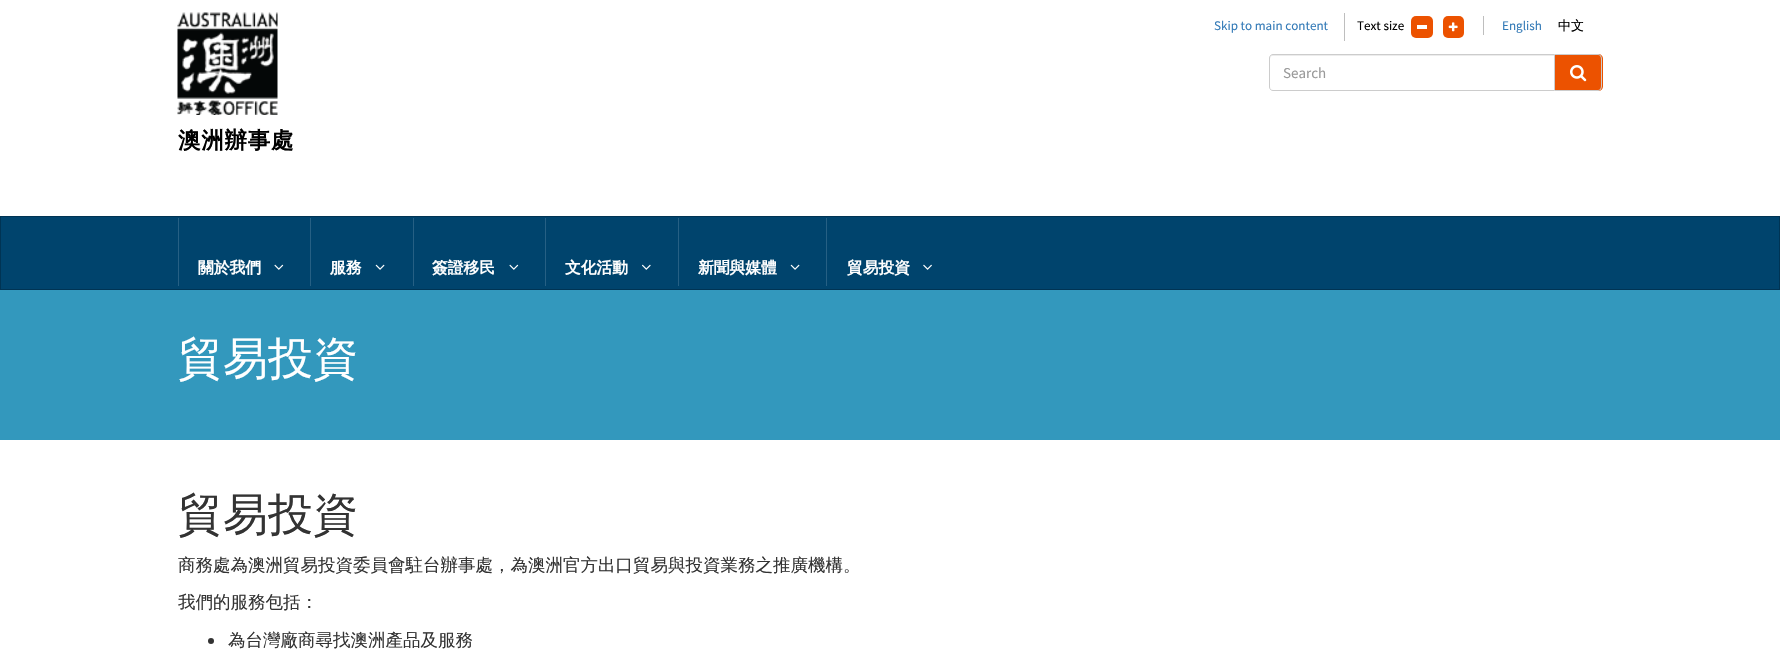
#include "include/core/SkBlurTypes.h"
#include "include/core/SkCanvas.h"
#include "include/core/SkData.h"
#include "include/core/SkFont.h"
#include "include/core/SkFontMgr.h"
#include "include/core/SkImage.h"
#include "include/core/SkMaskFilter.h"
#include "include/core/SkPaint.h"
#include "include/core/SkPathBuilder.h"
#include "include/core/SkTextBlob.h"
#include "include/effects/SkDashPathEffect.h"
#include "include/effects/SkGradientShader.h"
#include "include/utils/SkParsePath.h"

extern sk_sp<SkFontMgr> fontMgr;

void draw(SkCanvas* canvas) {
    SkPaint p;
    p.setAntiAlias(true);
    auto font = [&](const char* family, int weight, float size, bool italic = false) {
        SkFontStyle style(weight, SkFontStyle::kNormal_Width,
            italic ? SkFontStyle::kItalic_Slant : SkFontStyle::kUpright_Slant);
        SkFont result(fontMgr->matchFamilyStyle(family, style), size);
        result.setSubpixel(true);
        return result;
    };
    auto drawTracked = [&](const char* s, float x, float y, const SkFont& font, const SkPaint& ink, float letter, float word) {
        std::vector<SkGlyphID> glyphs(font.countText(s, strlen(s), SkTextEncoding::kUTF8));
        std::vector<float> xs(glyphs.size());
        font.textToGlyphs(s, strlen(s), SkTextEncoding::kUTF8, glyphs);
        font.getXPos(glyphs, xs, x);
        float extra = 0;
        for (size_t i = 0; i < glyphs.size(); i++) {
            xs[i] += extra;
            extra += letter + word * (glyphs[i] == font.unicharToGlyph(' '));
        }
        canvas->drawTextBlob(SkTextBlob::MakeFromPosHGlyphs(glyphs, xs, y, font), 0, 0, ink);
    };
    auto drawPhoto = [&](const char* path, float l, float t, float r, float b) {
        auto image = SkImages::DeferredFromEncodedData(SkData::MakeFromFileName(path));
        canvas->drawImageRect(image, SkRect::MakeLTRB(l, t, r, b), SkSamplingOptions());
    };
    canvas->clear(0xFFFFFFFF);
    drawPhoto("media/1.png", 177, 12, 278, 115);
    auto font1 = font("Source Sans Pro", 400, 13.1f);
    p.setColor(0xFF337AB7);
    canvas->drawString("Skip to main content", 1214, 30, font1, p);
    p.setColor(0xFFBEBEBE);
    canvas->drawRect(SkRect::MakeLTRB(1344, 13, 1345, 41), p);
    p.setColor(0xFF000000);
    canvas->drawString("Text size", 1357, 30, font1, p);
    p.setColor(0xFFEC5200);
    canvas->drawRoundRect(SkRect::MakeLTRB(1411, 16, 1433, 38), 5, 5, p);
    p.setColor(0xFFFFFFFF);
    canvas->drawRect(SkRect::MakeLTRB(1417, 25, 1427, 29), p);
    p.setColor(0xFFEC5200);
    canvas->drawRoundRect(SkRect::MakeLTRB(1443, 16, 1464, 38), 5, 5, p);
    drawPhoto("media/2.png", 1448, 22, 1458, 32);
    p.setColor(0xFFBEBEBE);
    canvas->drawRect(SkRect::MakeLTRB(1483, 16, 1484, 35), p);
    p.setColor(0xFF337AB7);
    canvas->drawString("English", 1502, 30, font1, p);
    auto font2 = font("WenQuanYi Zen Hei", 500, 13.1f);
    p.setColor(0xFF000000);
    canvas->drawString("中文", 1558, 30, font2, p);
    p.setColor(0xFFECECEC);
    canvas->drawPath(SkPathBuilder().moveTo(1272, 56).lineTo(1554, 56).lineTo(1554, 55).lineTo(1272, 55).cubicTo(1270, 55, 1270, 57, 1270, 59).cubicTo(1270, 57, 1271, 56, 1272, 56).close().detach(), p);
    p.setStyle(SkPaint::kStroke_Style);
    p.setStrokeWidth(1);
    p.setColor(0xFFCCCCCC);
    canvas->drawPath(SkPathBuilder().moveTo(1273, 54.5f).lineTo(1554.5f, 54.5f).lineTo(1554.5f, 90.5f).lineTo(1273, 90.5f).cubicTo(1271, 90.5f, 1269.5f, 89, 1269.5f, 87).lineTo(1269.5f, 58).cubicTo(1269.5f, 56, 1271, 54.5f, 1273, 54.5f).close().detach(), p);
    auto font3 = font("Source Sans Pro", 400, 15);
    p.setStyle(SkPaint::kFill_Style);
    p.setColor(0xFF999999);
    canvas->drawString("Search", 1283, 78, font3, p);
    p.setColor(0xFFEC5200);
    canvas->drawPath(SkPathBuilder().moveTo(1555, 54).lineTo(1598, 54).cubicTo(1601, 54, 1603, 56, 1603, 59).lineTo(1603, 86).cubicTo(1603, 89, 1601, 91, 1598, 91).lineTo(1555, 91).close().detach(), p);
    p.setColor(0xFFCCCCCC);
    canvas->drawPath(SkPathBuilder(SkPathFillType::kEvenOdd).moveTo(1555, 54).lineTo(1598, 54).cubicTo(1600, 54, 1602, 56, 1602, 59).lineTo(1602, 86).cubicTo(1602, 89, 1600, 91, 1598, 91).lineTo(1555, 91).close().moveTo(1555, 55).lineTo(1598, 55).cubicTo(1600, 55, 1601, 57, 1601, 59).lineTo(1601, 86).cubicTo(1601, 88, 1600, 90, 1598, 90).lineTo(1555, 90).close().detach(), p);
    drawPhoto("media/3.png", 1570, 65, 1587, 82);
    auto font4 = font("WenQuanYi Zen Hei", 700, 22.5f);
    p.setColor(0xFF000000);
    drawTracked("澳洲辦事處", 178, 148, font4, p, 0.75f, 0);
    p.setColor(0xFF00446D);
    canvas->drawRect(SkRect::MakeLTRB(0.5f, 216.5f, 1779.5f, 289.5f), p);
    p.setStyle(SkPaint::kStroke_Style);
    p.setColor(0xFF003454);
    canvas->drawRect(SkRect::MakeLTRB(0.5f, 216.5f, 1779.5f, 289.5f), p);
    p.setStyle(SkPaint::kFill_Style);
    p.setColor(0xFF266084);
    canvas->drawRect(SkRect::MakeLTRB(178, 218, 179, 286), p);
    auto font5 = font("WenQuanYi Zen Hei", 700, 15.75f);
    p.setColor(0xFFFFFFFF);
    canvas->drawString("關於我們", 198, 273, font5, p);
    drawPhoto("media/4.png", 274, 264, 284, 270);
    p.setColor(0xFF266084);
    canvas->drawRect(SkRect::MakeLTRB(310, 218, 311, 286), p);
    p.setColor(0xFFFFFFFF);
    canvas->drawString("服務", 330, 273, font5, p);
    drawPhoto("media/5.png", 375, 264, 385, 270);
    p.setColor(0xFF266084);
    canvas->drawRect(SkRect::MakeLTRB(413, 218, 414, 286), p);
    p.setColor(0xFFFFFFFF);
    canvas->drawString("簽證移民", 432, 273, font5, p);
    drawPhoto("media/4.png", 509, 264, 519, 270);
    p.setColor(0xFF266084);
    canvas->drawRect(SkRect::MakeLTRB(545, 218, 546, 286), p);
    p.setColor(0xFFFFFFFF);
    canvas->drawString("文化活動", 565, 273, font5, p);
    drawPhoto("media/6.png", 642, 264, 651, 270);
    p.setColor(0xFF266084);
    canvas->drawRect(SkRect::MakeLTRB(678, 218, 679, 286), p);
    p.setColor(0xFFFFFFFF);
    canvas->drawString("新聞與媒體", 698, 273, font5, p);
    drawPhoto("media/5.png", 790, 264, 800, 270);
    p.setColor(0xFF266084);
    canvas->drawRect(SkRect::MakeLTRB(826, 218, 827, 286), p);
    p.setColor(0xFFFFFFFF);
    canvas->drawString("貿易投資", 847, 273, font5, p);
    drawPhoto("media/7.png", 923, 264, 932, 270);
    p.setColor(0xFF3398BD);
    canvas->drawRect(SkRect::MakeLTRB(0, 290, 1780, 440), p);
    auto font6 = font("WenQuanYi Zen Hei", 500, 45);
    p.setColor(0xFFFFFFFF);
    canvas->drawString("貿易投資", 178, 374, font6, p);
    p.setColor(0xFF333333);
    canvas->drawString("貿易投資", 178, 530, font6, p);
    auto font7 = font("WenQuanYi Zen Hei", 500, 17.5f);
    canvas->drawString("商務處為澳洲貿易投資委員會駐台辦事處，為澳洲官方出口貿易與投資業務之推廣機構。", 178, 571, font7, p);
    canvas->drawString("我們的服務包括：", 178, 608, font7, p);
    canvas->drawCircle(211, 641, 3, p);
    canvas->drawString("為台灣廠商尋找澳洲產品及服務", 228, 646, font7, p);
}
